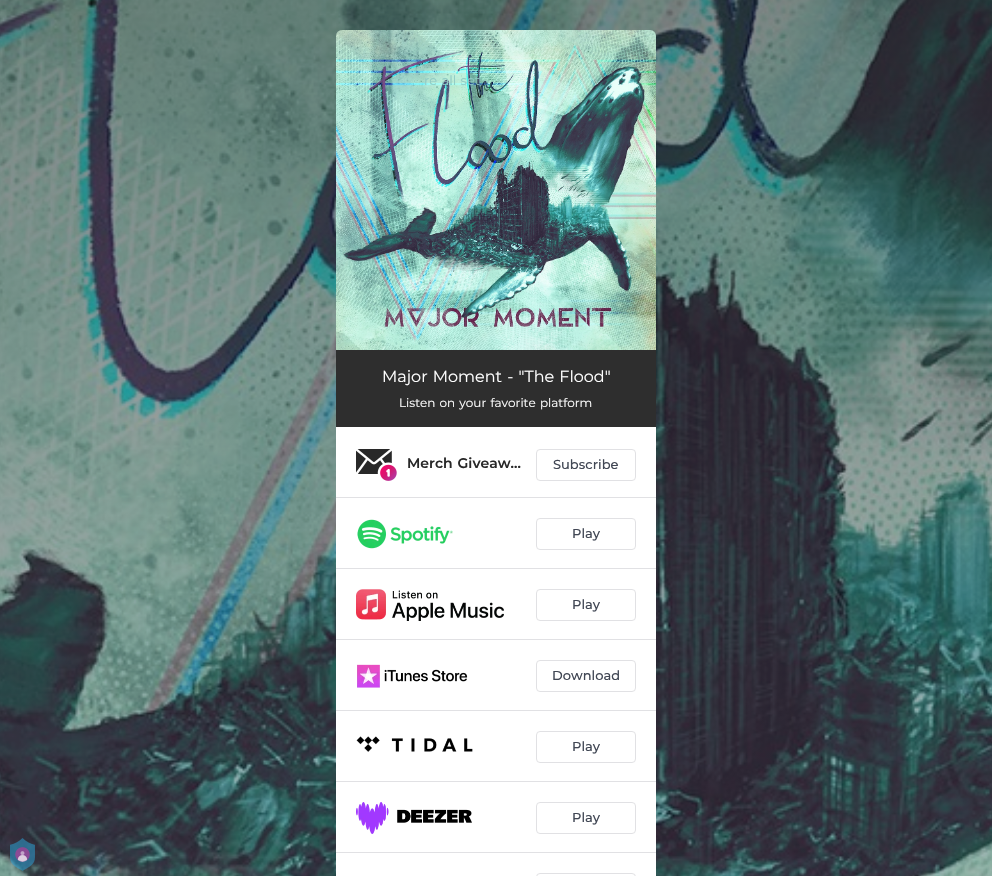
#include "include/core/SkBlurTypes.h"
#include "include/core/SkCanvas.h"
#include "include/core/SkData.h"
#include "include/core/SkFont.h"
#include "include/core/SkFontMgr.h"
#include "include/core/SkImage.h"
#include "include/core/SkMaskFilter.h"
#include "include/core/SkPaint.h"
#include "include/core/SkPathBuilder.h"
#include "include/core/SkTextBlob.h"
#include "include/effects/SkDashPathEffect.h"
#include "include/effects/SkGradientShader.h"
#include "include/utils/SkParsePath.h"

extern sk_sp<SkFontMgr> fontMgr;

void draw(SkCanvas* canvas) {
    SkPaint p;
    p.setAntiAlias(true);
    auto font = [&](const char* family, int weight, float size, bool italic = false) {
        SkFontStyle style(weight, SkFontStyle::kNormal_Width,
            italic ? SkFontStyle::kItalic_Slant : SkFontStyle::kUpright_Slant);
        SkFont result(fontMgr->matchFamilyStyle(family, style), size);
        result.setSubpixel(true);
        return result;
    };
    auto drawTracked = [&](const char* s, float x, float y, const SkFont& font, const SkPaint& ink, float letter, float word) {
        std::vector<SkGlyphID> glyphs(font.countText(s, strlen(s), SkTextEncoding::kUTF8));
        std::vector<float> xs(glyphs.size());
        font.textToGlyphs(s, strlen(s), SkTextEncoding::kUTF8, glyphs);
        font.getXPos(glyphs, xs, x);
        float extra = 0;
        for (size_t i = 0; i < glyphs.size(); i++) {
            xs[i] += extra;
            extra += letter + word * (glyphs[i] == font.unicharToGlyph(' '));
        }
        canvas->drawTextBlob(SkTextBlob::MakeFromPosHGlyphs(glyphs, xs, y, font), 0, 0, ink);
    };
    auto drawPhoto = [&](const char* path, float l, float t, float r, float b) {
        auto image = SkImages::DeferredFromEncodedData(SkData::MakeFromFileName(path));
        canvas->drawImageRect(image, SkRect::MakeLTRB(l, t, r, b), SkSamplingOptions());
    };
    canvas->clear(0xFFFFFFFF);
    drawPhoto("media/1.png", 0, 0, 992, 876);
    drawPhoto("media/2.png", 336, 30, 656, 350);
    auto font1 = font("Montserrat", 400, 13);
    p.setColor(0xFF90CBC5);
    drawTracked("re all set", 424, 85, font1, p, 0, 1);
    p.setColor(0xFF2E2E2E);
    canvas->drawRect(SkRect::MakeLTRB(336, 350, 656, 427), p);
    auto font2 = font("Montserrat", 400, 16);
    p.setColor(0xFFFFFFFF);
    drawTracked("Major Moment - \"The Flood\"", 382, 382, font2, p, 0, 1);
    auto font3 = font("Montserrat", 400, 12);
    drawTracked("Listen on your favorite platform", 399, 407, font3, p, 0, 1);
    canvas->drawRect(SkRect::MakeLTRB(336, 427, 656, 876), p);
    p.setColor(0xFFE1E1E4);
    canvas->drawRect(SkRect::MakeLTRB(336, 497, 656, 498), p);
    drawPhoto("media/3.png", 356, 449, 397, 481);
    auto font4 = font("Montserrat", 600, 14);
    p.setColor(0xFF282828);
    drawTracked("Merch Giveaw…", 407, 468, font4, p, 0, 1);
    p.setStyle(SkPaint::kStroke_Style);
    p.setStrokeWidth(1);
    p.setColor(0xFFE1E1E4);
    canvas->drawRoundRect(SkRect::MakeLTRB(536.5f, 449.5f, 635.5f, 480.5f), 3.5f, 3.5f, p);
    auto font5 = font("Montserrat", 500, 13);
    p.setStyle(SkPaint::kFill_Style);
    p.setColor(0xFF414754);
    canvas->drawString("Subscribe", 553, 469, font5, p);
    p.setColor(0xFFE1E1E4);
    canvas->drawRect(SkRect::MakeLTRB(336, 568, 656, 569), p);
    drawPhoto("media/4.png", 357, 519, 453, 549);
    p.setStyle(SkPaint::kStroke_Style);
    canvas->drawRoundRect(SkRect::MakeLTRB(536.5f, 518.5f, 635.5f, 549.5f), 3.5f, 3.5f, p);
    p.setStyle(SkPaint::kFill_Style);
    p.setColor(0xFF414754);
    canvas->drawString("Play", 572, 538, font5, p);
    p.setColor(0xFFE1E1E4);
    canvas->drawRect(SkRect::MakeLTRB(336, 639, 656, 640), p);
    drawPhoto("media/5.png", 356, 589, 504, 621);
    p.setStyle(SkPaint::kStroke_Style);
    canvas->drawRoundRect(SkRect::MakeLTRB(536.5f, 589.5f, 635.5f, 620.5f), 3.5f, 3.5f, p);
    p.setStyle(SkPaint::kFill_Style);
    p.setColor(0xFF414754);
    canvas->drawString("Play", 572, 609, font5, p);
    p.setColor(0xFFE1E1E4);
    canvas->drawRect(SkRect::MakeLTRB(336, 710, 656, 711), p);
    drawPhoto("media/6.png", 357, 664, 468, 688);
    p.setStyle(SkPaint::kStroke_Style);
    canvas->drawRoundRect(SkRect::MakeLTRB(536.5f, 660.5f, 635.5f, 691.5f), 3.5f, 3.5f, p);
    p.setStyle(SkPaint::kFill_Style);
    p.setColor(0xFF414754);
    canvas->drawString("Download", 552, 680, font5, p);
    p.setColor(0xFFE1E1E4);
    canvas->drawRect(SkRect::MakeLTRB(336, 781, 656, 782), p);
    drawPhoto("media/7.png", 356, 736, 473, 752);
    p.setStyle(SkPaint::kStroke_Style);
    canvas->drawRoundRect(SkRect::MakeLTRB(536.5f, 731.5f, 635.5f, 762.5f), 3.5f, 3.5f, p);
    p.setStyle(SkPaint::kFill_Style);
    p.setColor(0xFF414754);
    canvas->drawString("Play", 572, 751, font5, p);
    p.setColor(0xFFE1E1E4);
    canvas->drawRect(SkRect::MakeLTRB(336, 852, 656, 853), p);
    drawPhoto("media/8.png", 356, 802, 472, 834);
    p.setStyle(SkPaint::kStroke_Style);
    canvas->drawRoundRect(SkRect::MakeLTRB(536.5f, 802.5f, 635.5f, 833.5f), 3.5f, 3.5f, p);
    p.setStyle(SkPaint::kFill_Style);
    p.setColor(0xFF414754);
    canvas->drawString("Play", 572, 822, font5, p);
    p.setStyle(SkPaint::kStroke_Style);
    p.setColor(0xFFE1E1E4);
    canvas->drawRoundRect(SkRect::MakeLTRB(536.5f, 873.5f, 635.5f, 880.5f), 3.5f, 3.5f, p);
    drawPhoto("media/9.png", 10, 838, 35, 871);
}
